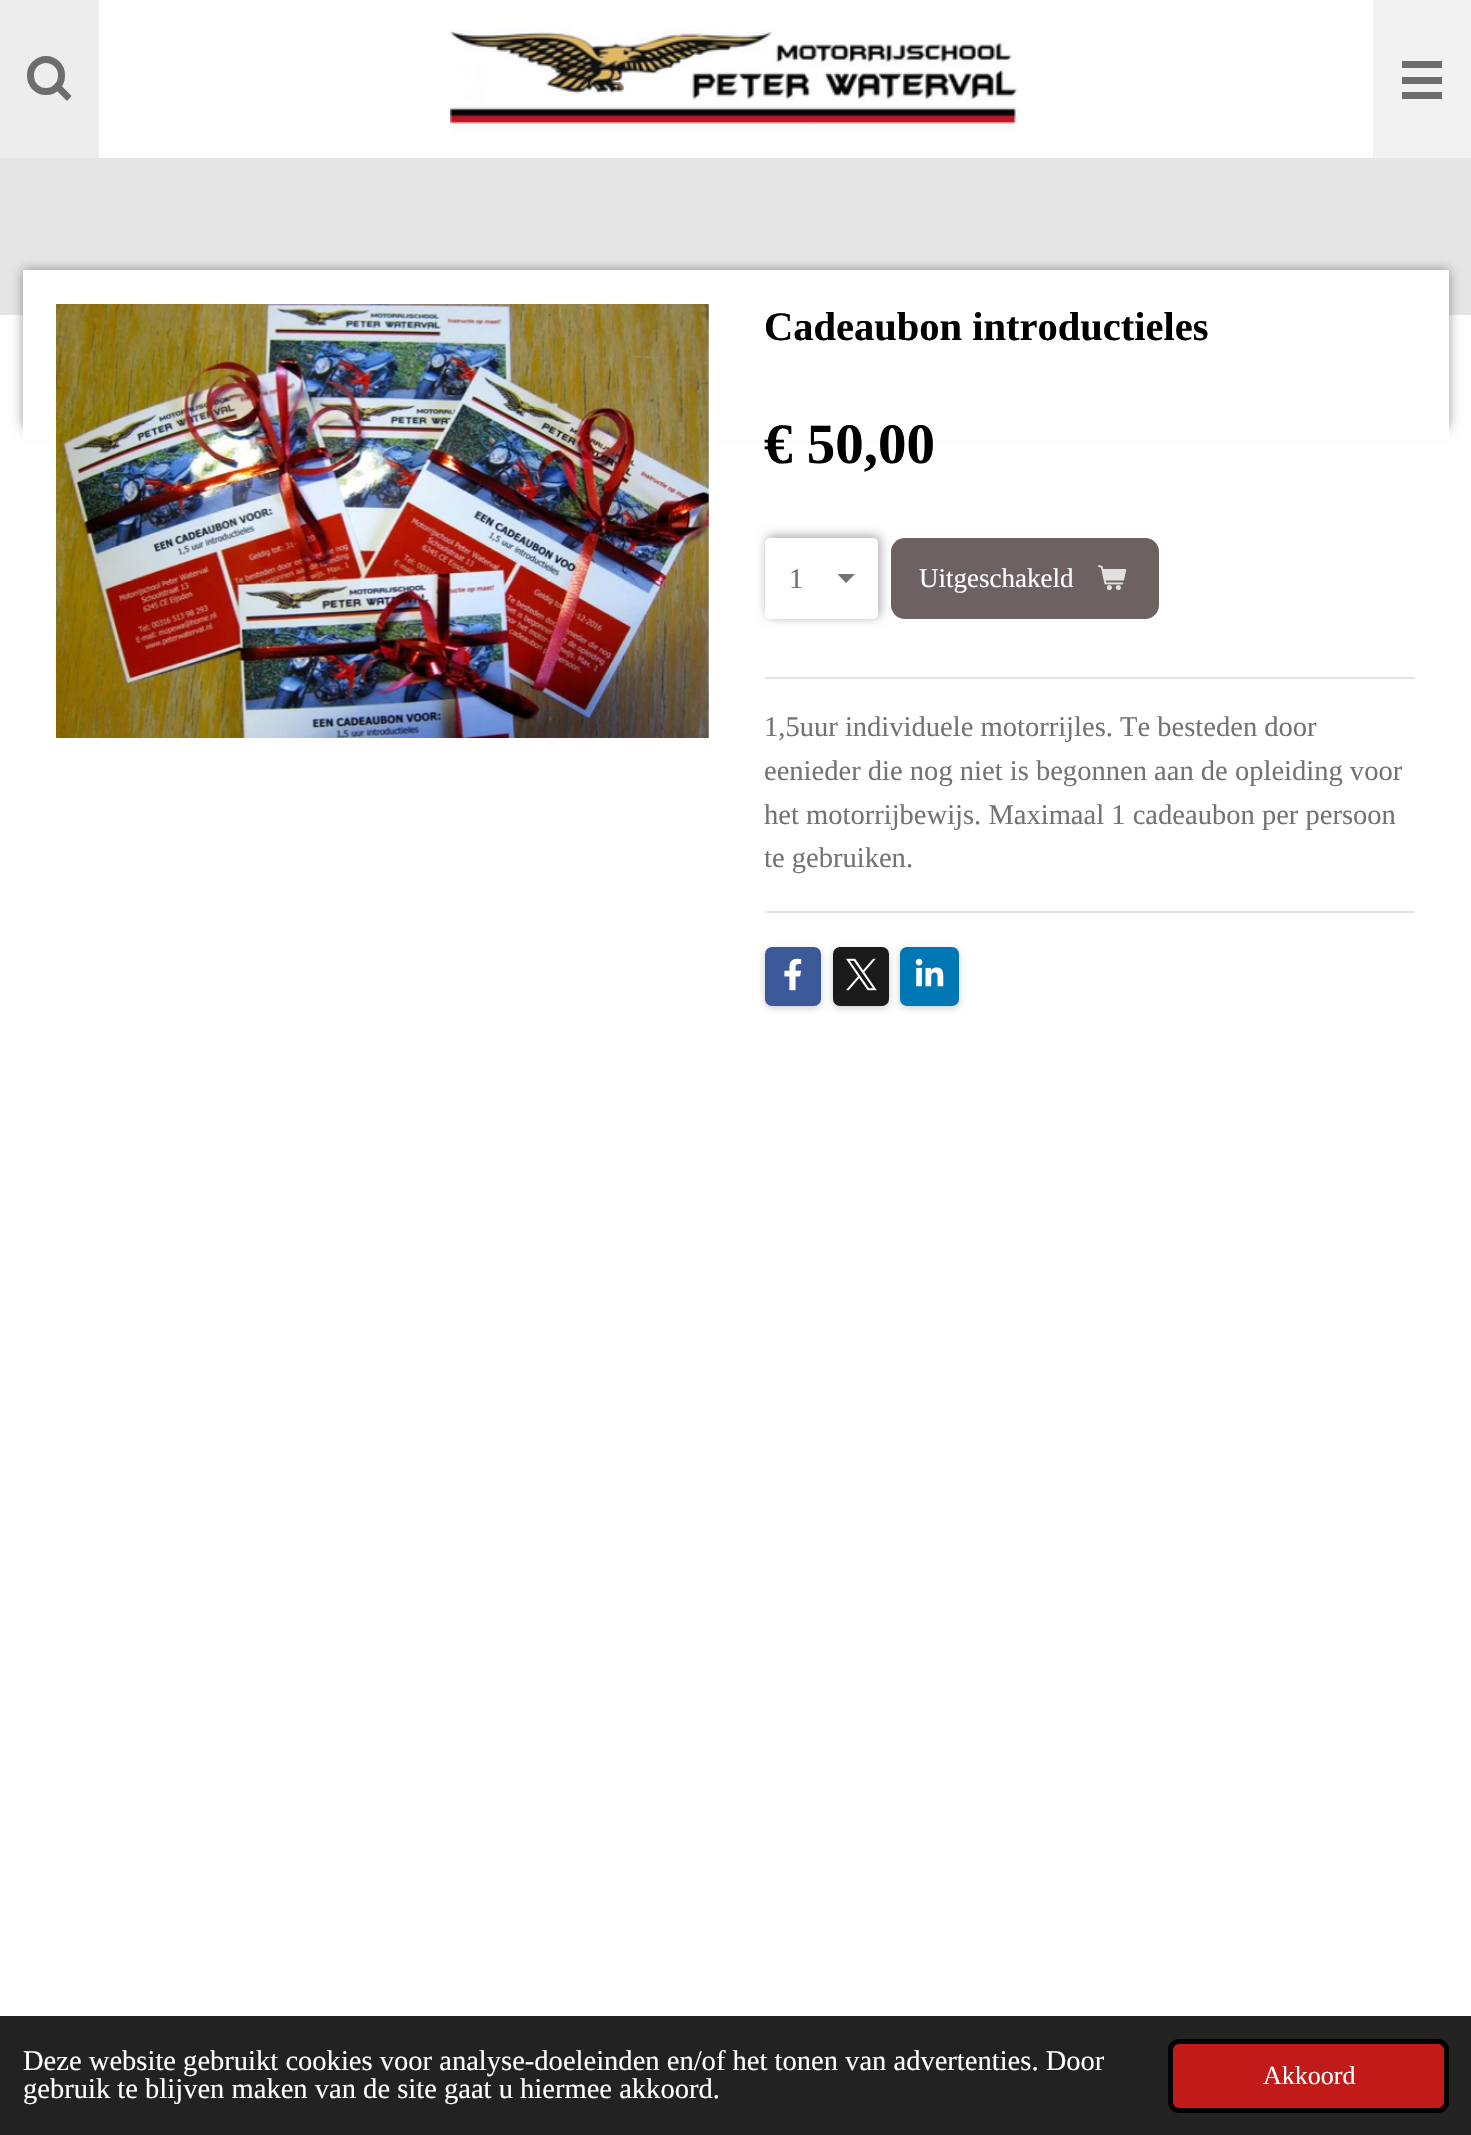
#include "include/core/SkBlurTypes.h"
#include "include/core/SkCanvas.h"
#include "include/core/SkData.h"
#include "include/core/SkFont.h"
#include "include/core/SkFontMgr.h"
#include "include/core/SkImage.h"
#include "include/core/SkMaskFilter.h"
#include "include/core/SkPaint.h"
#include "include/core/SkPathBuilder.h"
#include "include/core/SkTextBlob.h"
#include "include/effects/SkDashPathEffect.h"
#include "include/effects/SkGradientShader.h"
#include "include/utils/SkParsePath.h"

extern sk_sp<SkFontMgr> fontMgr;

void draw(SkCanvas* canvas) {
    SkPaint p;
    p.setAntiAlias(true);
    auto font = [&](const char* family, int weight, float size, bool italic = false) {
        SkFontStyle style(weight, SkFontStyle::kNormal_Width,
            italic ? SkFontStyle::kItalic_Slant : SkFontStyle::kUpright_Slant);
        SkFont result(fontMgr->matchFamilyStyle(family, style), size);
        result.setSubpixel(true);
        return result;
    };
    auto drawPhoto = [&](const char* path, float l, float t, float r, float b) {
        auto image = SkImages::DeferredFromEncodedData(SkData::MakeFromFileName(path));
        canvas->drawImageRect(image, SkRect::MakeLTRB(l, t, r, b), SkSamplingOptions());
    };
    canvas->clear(0xFFFFFFFF);
    p.setColor(0xFFEDEDED);
    canvas->drawRect(SkRect::MakeLTRB(0, 0, 99, 158), p);
    p.setStyle(SkPaint::kStroke_Style);
    p.setStrokeWidth(7);
    p.setColor(0xFF6D6D6D);
    canvas->drawRoundRect(SkRect::MakeLTRB(30.5f, 59.5f, 61.5f, 91.5f), 15.5f, 15.5f, p);
    p.setStyle(SkPaint::kFill_Style);
    canvas->drawPath(SkPathBuilder().moveTo(57.5f, 81.5f).lineTo(71.5f, 96).lineTo(67, 101).lineTo(52.5f, 86.5f).close().detach(), p);
    drawPhoto("media/1.png", 450, 24, 1019, 135);
    {
        const struct { float l, t, r, b; SkColor color; } items[] = {
            {1373, 0, 1471, 158, 0xFFF2F2F2},
            {1402, 77, 1442, 84, 0xFF6D6D6D},
            {1402, 61, 1442, 68, 0xFF6D6D6D},
            {1402, 92, 1442, 99, 0xFF6D6D6D},
            {0, 158, 1471, 315, 0xFFE6E6E6},
        };
        for (auto [l, t, r, b, color] : items) {
            p.setColor(color);
            canvas->drawRect(SkRect::MakeLTRB(l, t, r, b), p);
        }
    }
    p.setColor(0x66000000);
    p.setMaskFilter(SkMaskFilter::MakeBlur(kNormal_SkBlurStyle, 5.5f));
    canvas->drawRect(SkRect::MakeLTRB(23, 270, 1449, 428), p);
    p.setMaskFilter(nullptr);
    p.setColor(0xFFFFFFFF);
    canvas->drawRect(SkRect::MakeLTRB(23, 270, 1449, 439), p);
    drawPhoto("media/2.png", 56, 304, 709, 738);
    auto font1 = font("Liberation Serif", 700, 40.5f);
    p.setColor(0xFF000000);
    canvas->drawString("Cadeaubon introductieles", 764, 340, font1, p);
    auto font2 = font("Liberation Serif", 700, 57);
    canvas->drawString("€ 50,00", 764, 463, font2, p);
    p.setColor(0x59000000);
    p.setMaskFilter(SkMaskFilter::MakeBlur(kNormal_SkBlurStyle, 5.5f));
    canvas->drawRoundRect(SkRect::MakeLTRB(767, 536, 880, 617), 5, 5, p);
    p.setMaskFilter(nullptr);
    p.setColor(0xFFFFFFFF);
    canvas->drawRoundRect(SkRect::MakeLTRB(765, 538, 878, 619), 5, 5, p);
    p.setColor(0xFF737373);
    canvas->drawPath(SkPathBuilder().moveTo(846, 583).lineTo(837.5f, 574).lineTo(855, 574).close().detach(), p);
    auto font3 = font("Liberation Serif", 400, 28.55f);
    canvas->drawString("1", 789, 588, font3, p);
    p.setColor(0xFF6E6161);
    canvas->drawRoundRect(SkRect::MakeLTRB(891, 538, 1159, 619), 14, 14, p);
    auto font4 = font("Liberation Serif", 400, 27);
    p.setColor(0xFFFFFFFF);
    canvas->drawString("Uitgeschakeld", 919, 587, font4, p);
    drawPhoto("media/3.png", 1098, 565, 1127, 591);
    p.setColor(0xFFE3E3E3);
    canvas->drawRect(SkRect::MakeLTRB(765, 677, 1415, 679), p);
    p.setColor(0xFF737373);
    {
        const struct { const char* s; float x, y; } items[] = {
            {"1,5uur individuele motorrijles. Te besteden door", 764, 736},
            {"eenieder die nog niet is begonnen aan de opleiding voor", 764, 780},
            {"het motorrijbewijs. Maximaal 1 cadeaubon per persoon", 764, 824},
            {"te gebruiken.", 764, 867},
        };
        for (auto [s, x, y] : items) {
            canvas->drawString(s, x, y, font3, p);
        }
    }
    p.setColor(0xFFE3E3E3);
    canvas->drawRect(SkRect::MakeLTRB(765, 911, 1415, 913), p);
    p.setColor(0x33000000);
    p.setMaskFilter(SkMaskFilter::MakeBlur(kNormal_SkBlurStyle, 3.5f));
    canvas->drawRoundRect(SkRect::MakeLTRB(765, 950, 821, 1008), 7, 7, p);
    p.setMaskFilter(nullptr);
    p.setColor(0xFF3B5998);
    canvas->drawRoundRect(SkRect::MakeLTRB(765, 947, 821, 1006), 7, 7, p);
    drawPhoto("media/4.png", 784, 958, 802, 991);
    p.setColor(0x33000000);
    p.setMaskFilter(SkMaskFilter::MakeBlur(kNormal_SkBlurStyle, 3.5f));
    canvas->drawRoundRect(SkRect::MakeLTRB(833, 950, 889, 1008), 7, 7, p);
    p.setMaskFilter(nullptr);
    p.setColor(0xFF1A1A1A);
    canvas->drawRoundRect(SkRect::MakeLTRB(833, 947, 889, 1006), 7, 7, p);
    drawPhoto("media/5.png", 846, 958, 877, 991);
    p.setColor(0x33000000);
    p.setMaskFilter(SkMaskFilter::MakeBlur(kNormal_SkBlurStyle, 3.5f));
    canvas->drawRoundRect(SkRect::MakeLTRB(900, 950, 959, 1008), 7, 7, p);
    p.setMaskFilter(nullptr);
    p.setColor(0xFF0077B5);
    canvas->drawRoundRect(SkRect::MakeLTRB(900, 947, 959, 1006), 7, 7, p);
    drawPhoto("media/6.png", 915, 958, 944, 987);
    p.setColor(0xFF222222);
    canvas->drawRect(SkRect::MakeLTRB(0, 2016, 1471, 2135), p);
    p.setColor(0xFFFFFFFF);
    canvas->drawString("Deze website gebruikt cookies voor analyse-doeleinden en/of het tonen van advertenties. Door", 23, 2070, font3, p);
    canvas->drawString("gebruik te blijven maken van de site gaat u hiermee akkoord.", 23, 2098, font3, p);
    p.setColor(0xFFC21919);
    canvas->drawRoundRect(SkRect::MakeLTRB(1170.5f, 2041.5f, 1446.5f, 2110.5f), 8.5f, 8.5f, p);
    p.setStyle(SkPaint::kStroke_Style);
    p.setStrokeWidth(5);
    p.setColor(0xFF000000);
    canvas->drawRoundRect(SkRect::MakeLTRB(1170.5f, 2041.5f, 1446.5f, 2110.5f), 8.5f, 8.5f, p);
    auto font5 = font("Liberation Serif", 400, 26);
    p.setStyle(SkPaint::kFill_Style);
    p.setColor(0xFFFFFFFF);
    canvas->drawString("Akkoord", 1263, 2084, font5, p);
}
